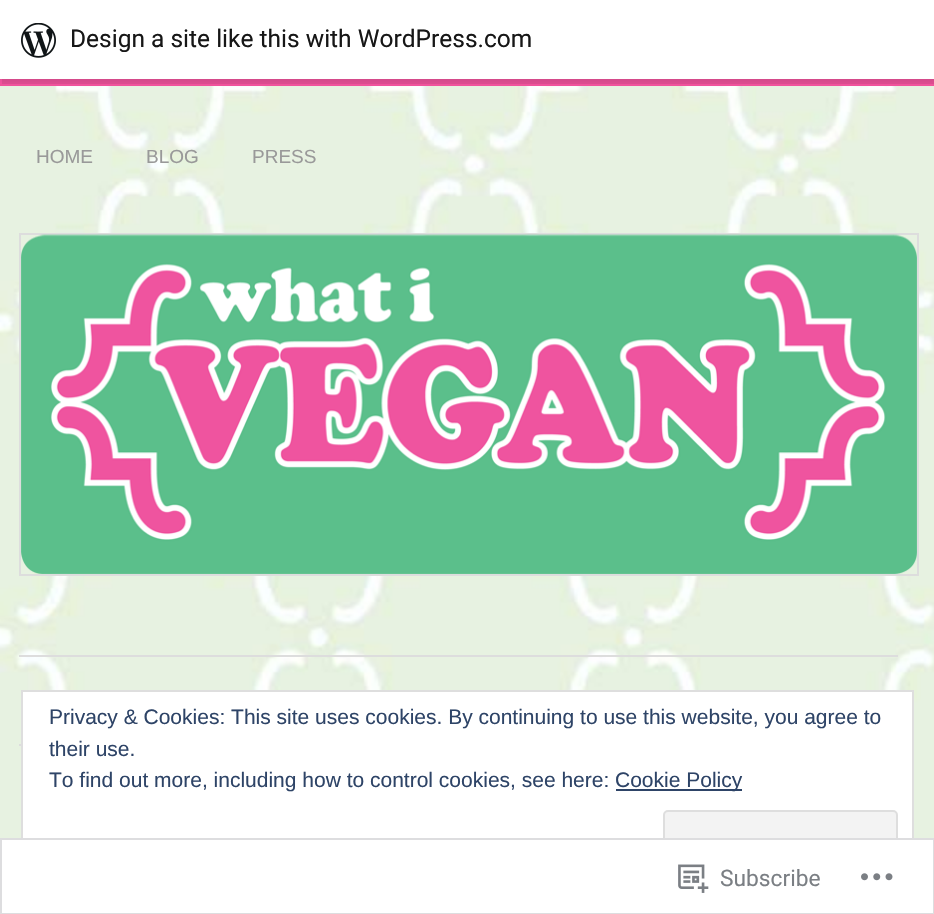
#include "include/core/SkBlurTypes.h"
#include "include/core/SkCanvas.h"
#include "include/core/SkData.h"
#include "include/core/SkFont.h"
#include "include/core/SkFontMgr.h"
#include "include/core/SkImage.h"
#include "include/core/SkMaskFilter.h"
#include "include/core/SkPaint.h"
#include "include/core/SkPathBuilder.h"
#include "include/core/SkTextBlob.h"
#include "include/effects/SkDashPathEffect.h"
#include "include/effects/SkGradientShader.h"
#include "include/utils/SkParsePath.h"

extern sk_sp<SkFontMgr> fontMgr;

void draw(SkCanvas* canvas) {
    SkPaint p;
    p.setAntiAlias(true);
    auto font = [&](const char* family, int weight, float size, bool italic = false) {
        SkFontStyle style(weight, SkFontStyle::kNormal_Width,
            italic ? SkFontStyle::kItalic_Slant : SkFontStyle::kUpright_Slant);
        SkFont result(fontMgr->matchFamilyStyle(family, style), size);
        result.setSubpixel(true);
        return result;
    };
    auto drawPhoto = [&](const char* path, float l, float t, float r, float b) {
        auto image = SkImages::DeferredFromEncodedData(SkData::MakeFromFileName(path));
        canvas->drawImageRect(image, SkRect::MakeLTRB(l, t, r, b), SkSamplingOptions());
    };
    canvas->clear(0xFFFFFFFF);
    drawPhoto("media/1.png", 0, 86, 934, 914);
    p.setColor(0xFFF1539D);
    canvas->drawRect(SkRect::MakeLTRB(0, 79, 934, 86), p);
    p.setColor(0x0D000000);
    p.setMaskFilter(SkMaskFilter::MakeBlur(kNormal_SkBlurStyle, 2));
    canvas->drawRect(SkRect::MakeLTRB(0, 2, 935, 81), p);
    p.setMaskFilter(nullptr);
    p.setColor(0x14000000);
    canvas->drawPath(SkPathBuilder().moveTo(2, 79).lineTo(2, 84).lineTo(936, 84).lineTo(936, 5).lineTo(934, 5).lineTo(934, 79).close().detach(), p);
    p.setColor(0xFFFFFFFF);
    canvas->drawRect(SkRect::MakeLTRB(0, 0, 934, 79), p);
    drawPhoto("media/2.png", 21, 23, 56, 58);
    auto font1 = font("Roboto", 400, 24.5f);
    p.setColor(0xFF171717);
    canvas->drawString("Design a site like this with WordPress.com", 70, 47, font1, p);
    auto font2 = font("Liberation Sans", 400, 19);
    p.setColor(0xFF999999);
    {
        const struct { const char* s; float x, y; } items[] = {
            {"HOME", 36, 163},
            {"BLOG", 146, 163},
            {"PRESS", 252, 163},
        };
        for (auto [s, x, y] : items) {
            canvas->drawString(s, x, y, font2, p);
        }
    }
    p.setStyle(SkPaint::kStroke_Style);
    p.setStrokeWidth(2);
    p.setColor(0xFFDDDDDD);
    canvas->drawRect(SkRect::MakeLTRB(20, 234, 918, 575), p);
    drawPhoto("media/3.png", 21, 234, 917, 574);
    p.setStyle(SkPaint::kFill_Style);
    canvas->drawRect(SkRect::MakeLTRB(19, 655, 898, 657), p);
    canvas->drawRect(SkRect::MakeLTRB(19, 744, 21, 746), p);
    p.setColor(0xFFFFFFFF);
    canvas->drawRect(SkRect::MakeLTRB(22, 691, 913, 893), p);
    p.setStyle(SkPaint::kStroke_Style);
    p.setColor(0xFFDEDEDE);
    canvas->drawRect(SkRect::MakeLTRB(22, 691, 913, 893), p);
    p.setStyle(SkPaint::kFill_Style);
    p.setColor(0xFFF3F3F3);
    canvas->drawRoundRect(SkRect::MakeLTRB(664, 811, 897, 878), 4, 4, p);
    p.setStyle(SkPaint::kStroke_Style);
    p.setColor(0xFFDEDEDE);
    canvas->drawRoundRect(SkRect::MakeLTRB(664, 811, 897, 878), 4, 4, p);
    p.setStyle(SkPaint::kFill_Style);
    p.setColor(0xFAFFFFFF);
    canvas->drawRect(SkRect::MakeLTRB(0, 838, 934, 914), p);
    p.setStyle(SkPaint::kStroke_Style);
    p.setColor(0xFADCDCDE);
    canvas->drawRect(SkRect::MakeLTRB(1, 839, 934, 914), p);
    drawPhoto("media/4.png", 678, 864, 709, 893);
    auto font3 = font("Roboto", 400, 22.75f);
    p.setStyle(SkPaint::kFill_Style);
    p.setColor(0xFF7B7F84);
    canvas->drawString("Subscribe", 720, 886, font3, p);
    drawPhoto("media/5.png", 861, 873, 893, 881);
    auto font4 = font("Liberation Sans", 400, 21);
    p.setColor(0xFF2E4467);
    {
        const struct { const char* s; float x, y; } items[] = {
            {"Privacy & Cookies: This site uses cookies. By continuing to use this website, you agree to", 49, 724},
            {"their use.", 49, 756},
            {"To find out more, including how to control cookies, see here:", 49, 787},
        };
        for (auto [s, x, y] : items) {
            canvas->drawString(s, x, y, font4, p);
        }
    }
    canvas->drawRect(SkRect::MakeLTRB(616, 789, 742, 791), p);
    canvas->drawString("Cookie Policy", 615, 787, font4, p);
}
